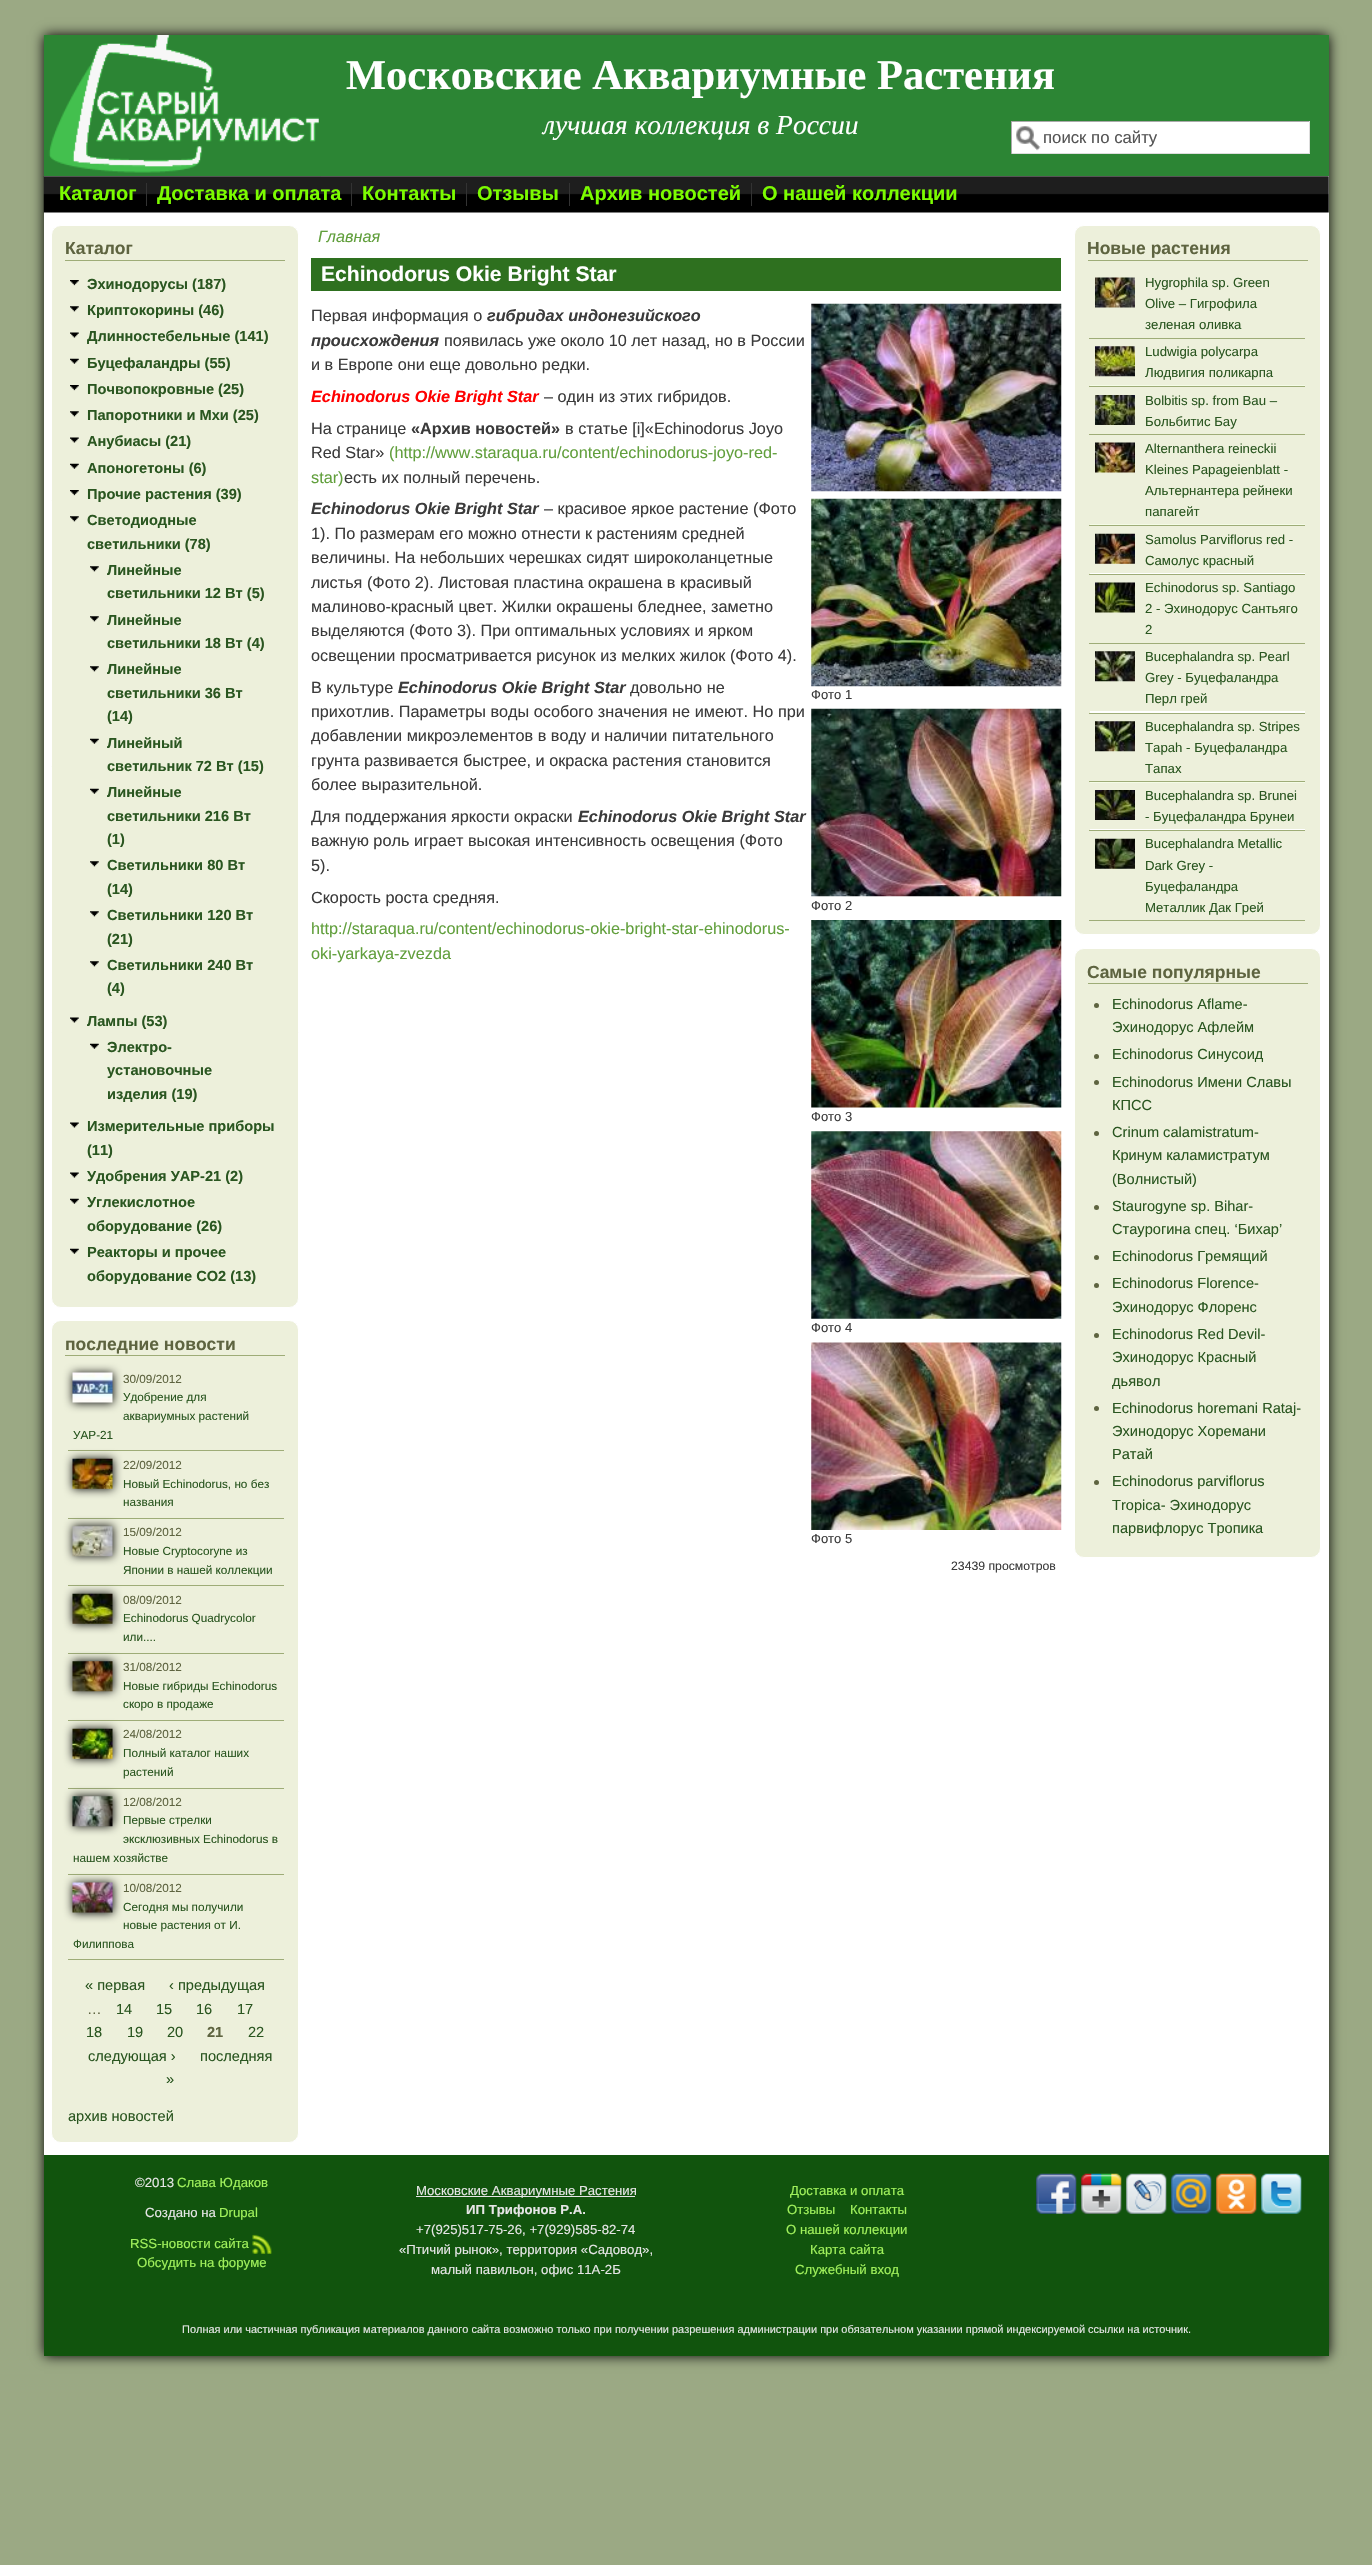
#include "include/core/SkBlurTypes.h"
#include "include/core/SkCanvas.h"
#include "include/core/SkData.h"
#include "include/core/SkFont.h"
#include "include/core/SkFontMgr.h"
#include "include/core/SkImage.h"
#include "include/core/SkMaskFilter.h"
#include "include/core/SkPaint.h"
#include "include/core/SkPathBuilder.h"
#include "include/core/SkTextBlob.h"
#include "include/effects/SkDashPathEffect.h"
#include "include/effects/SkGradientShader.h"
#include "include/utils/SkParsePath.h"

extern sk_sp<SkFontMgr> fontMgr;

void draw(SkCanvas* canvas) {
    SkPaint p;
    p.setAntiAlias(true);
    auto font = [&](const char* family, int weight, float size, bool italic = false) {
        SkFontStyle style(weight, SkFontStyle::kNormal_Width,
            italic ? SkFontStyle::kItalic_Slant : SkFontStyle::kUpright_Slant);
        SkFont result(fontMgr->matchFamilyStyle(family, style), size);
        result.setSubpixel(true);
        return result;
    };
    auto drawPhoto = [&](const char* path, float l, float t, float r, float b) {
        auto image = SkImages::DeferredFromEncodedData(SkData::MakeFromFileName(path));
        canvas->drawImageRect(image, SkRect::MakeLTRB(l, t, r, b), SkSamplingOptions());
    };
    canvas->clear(0xFF9BA984);
    p.setColor(0xFF000000);
    p.setMaskFilter(SkMaskFilter::MakeBlur(kNormal_SkBlurStyle, 6));
    canvas->drawRect(SkRect::MakeLTRB(44, 35, 1329, 2356), p);
    p.setMaskFilter(nullptr);
    p.setColor(0xFFFFFFFF);
    canvas->drawRect(SkRect::MakeLTRB(44, 176, 1329, 2155), p);
    p.setColor(0xFF2C8534);
    canvas->drawRect(SkRect::MakeLTRB(321, 35, 1329, 176), p);
    drawPhoto("media/1.png", 43, 35, 321, 177);
    auto font1 = font("Liberation Serif", 700, 42.5f);
    p.setColor(0xFFFFFFFF);
    canvas->drawString("Московские Аквариумные Растения", 346, 89, font1, p);
    auto font2 = font("Liberation Serif", 400, 27.5f, true);
    canvas->drawString("лучшая коллекция в России", 543, 134, font2, p);
    canvas->drawRect(SkRect::MakeLTRB(1012, 122, 1309, 153), p);
    drawPhoto("media/2.png", 1016, 126, 1041, 151);
    {
        const struct { float l, t, r, b; SkColor color; } items[] = {
            {1011, 121, 1310, 122, 0xFFAAAAAA},
            {1309, 121, 1310, 154, 0xFFDDDDDD},
            {1011, 153, 1310, 154, 0xFFDDDDDD},
            {1011, 121, 1012, 154, 0xFFAAAAAA},
        };
        for (auto [l, t, r, b, color] : items) {
            p.setColor(color);
            canvas->drawRect(SkRect::MakeLTRB(l, t, r, b), p);
        }
    }
    auto font3 = font("Liberation Sans", 400, 16.75f);
    p.setColor(0xFF555555);
    canvas->drawString("поиск по сайту", 1043, 143, font3, p);
    drawPhoto("media/3.png", 43, 176, 1329, 213);
    auto font4 = font("Liberation Sans", 700, 20);
    p.setColor(0xFF7CFC00);
    canvas->drawString("Каталог", 59, 200, font4, p);
    p.setColor(0xFF333333);
    canvas->drawRect(SkRect::MakeLTRB(146, 183, 147, 206), p);
    p.setColor(0xFF7CFC00);
    canvas->drawString("Доставка и оплата", 157, 200, font4, p);
    p.setColor(0xFF333333);
    canvas->drawRect(SkRect::MakeLTRB(351, 183, 352, 206), p);
    p.setColor(0xFF7CFC00);
    canvas->drawString("Контакты", 362, 200, font4, p);
    p.setColor(0xFF333333);
    canvas->drawRect(SkRect::MakeLTRB(466, 183, 467, 206), p);
    p.setColor(0xFF7CFC00);
    canvas->drawString("Отзывы", 477, 200, font4, p);
    p.setColor(0xFF333333);
    canvas->drawRect(SkRect::MakeLTRB(569, 183, 570, 206), p);
    p.setColor(0xFF7CFC00);
    canvas->drawString("Архив новостей", 580, 200, font4, p);
    p.setColor(0xFF333333);
    canvas->drawRect(SkRect::MakeLTRB(751, 183, 752, 206), p);
    p.setColor(0xFF7CFC00);
    canvas->drawString("О нашей коллекции", 762, 200, font4, p);
    p.setColor(0xFFEDF0DB);
    canvas->drawRoundRect(SkRect::MakeLTRB(51.5f, 225.5f, 298.5f, 1307.5f), 9.5f, 9.5f, p);
    p.setStyle(SkPaint::kStroke_Style);
    p.setStrokeWidth(1);
    p.setColor(0xFFFFFFFF);
    canvas->drawRoundRect(SkRect::MakeLTRB(51.5f, 225.5f, 298.5f, 1307.5f), 9.5f, 9.5f, p);
    p.setStyle(SkPaint::kFill_Style);
    p.setColor(0xFF9EAC77);
    canvas->drawRect(SkRect::MakeLTRB(65, 260, 285, 261), p);
    auto font5 = font("Liberation Sans", 700, 17.5f);
    p.setColor(0xFF5E6440);
    canvas->drawString("Каталог", 65, 254, font5, p);
    drawPhoto("media/4.png", 70, 280, 79, 286);
    auto font6 = font("Liberation Sans", 700, 14.6f);
    p.setColor(0xFF2A5620);
    canvas->drawString("Эхинодорусы (187)", 87, 289, font6, p);
    drawPhoto("media/5.png", 70, 306, 79, 312);
    canvas->drawString("Криптокорины (46)", 87, 315, font6, p);
    drawPhoto("media/6.png", 70, 332, 79, 338);
    canvas->drawString("Длинностебельные (141)", 87, 341, font6, p);
    drawPhoto("media/7.png", 70, 358, 79, 364);
    canvas->drawString("Буцефаландры (55)", 87, 368, font6, p);
    drawPhoto("media/4.png", 70, 385, 79, 391);
    canvas->drawString("Почвопокровные (25)", 87, 394, font6, p);
    drawPhoto("media/5.png", 70, 411, 79, 417);
    canvas->drawString("Папоротники и Мхи (25)", 87, 420, font6, p);
    drawPhoto("media/6.png", 70, 437, 79, 443);
    canvas->drawString("Анубиасы (21)", 87, 446, font6, p);
    drawPhoto("media/7.png", 70, 463, 79, 469);
    canvas->drawString("Апоногетоны (6)", 87, 473, font6, p);
    drawPhoto("media/4.png", 70, 490, 79, 496);
    canvas->drawString("Прочие растения (39)", 87, 499, font6, p);
    drawPhoto("media/5.png", 70, 516, 79, 522);
    canvas->drawString("Светодиодные", 87, 525, font6, p);
    canvas->drawString("светильники (78)", 87, 549, font6, p);
    drawPhoto("media/5.png", 90, 566, 99, 572);
    canvas->drawString("Линейные", 107, 575, font6, p);
    canvas->drawString("светильники 12 Вт (5)", 107, 598, font6, p);
    drawPhoto("media/5.png", 90, 616, 99, 622);
    canvas->drawString("Линейные", 107, 625, font6, p);
    canvas->drawString("светильники 18 Вт (4)", 107, 648, font6, p);
    drawPhoto("media/5.png", 90, 666, 99, 672);
    {
        const struct { const char* s; float x, y; } items[] = {
            {"Линейные", 107, 674},
            {"светильники 36 Вт", 107, 698},
            {"(14)", 107, 721},
        };
        for (auto [s, x, y] : items) {
            canvas->drawString(s, x, y, font6, p);
        }
    }
    drawPhoto("media/7.png", 90, 738, 99, 744);
    canvas->drawString("Линейный", 107, 748, font6, p);
    canvas->drawString("светильник 72 Вт (15)", 107, 771, font6, p);
    drawPhoto("media/7.png", 90, 788, 99, 794);
    {
        const struct { const char* s; float x, y; } items[] = {
            {"Линейные", 107, 797},
            {"светильники 216 Вт", 107, 821},
            {"(1)", 107, 844},
        };
        for (auto [s, x, y] : items) {
            canvas->drawString(s, x, y, font6, p);
        }
    }
    drawPhoto("media/5.png", 90, 861, 99, 867);
    canvas->drawString("Светильники 80 Вт", 107, 870, font6, p);
    canvas->drawString("(14)", 107, 894, font6, p);
    drawPhoto("media/5.png", 90, 911, 99, 917);
    canvas->drawString("Светильники 120 Вт", 107, 920, font6, p);
    canvas->drawString("(21)", 107, 944, font6, p);
    drawPhoto("media/5.png", 90, 961, 99, 967);
    canvas->drawString("Светильники 240 Вт", 107, 970, font6, p);
    canvas->drawString("(4)", 107, 993, font6, p);
    drawPhoto("media/6.png", 70, 1017, 79, 1023);
    canvas->drawString("Лампы (53)", 87, 1026, font6, p);
    drawPhoto("media/7.png", 90, 1043, 99, 1049);
    {
        const struct { const char* s; float x, y; } items[] = {
            {"Электро-", 107, 1052},
            {"установочные", 107, 1075},
            {"изделия (19)", 107, 1099},
        };
        for (auto [s, x, y] : items) {
            canvas->drawString(s, x, y, font6, p);
        }
    }
    drawPhoto("media/6.png", 70, 1122, 79, 1128);
    canvas->drawString("Измерительные приборы", 87, 1131, font6, p);
    canvas->drawString("(11)", 87, 1155, font6, p);
    drawPhoto("media/8.png", 70, 1172, 79, 1178);
    canvas->drawString("Удобрения УАР-21 (2)", 87, 1181, font6, p);
    drawPhoto("media/7.png", 70, 1198, 79, 1204);
    canvas->drawString("Углекислотное", 87, 1207, font6, p);
    canvas->drawString("оборудование (26)", 87, 1231, font6, p);
    drawPhoto("media/7.png", 70, 1248, 79, 1254);
    canvas->drawString("Реакторы и прочее", 87, 1257, font6, p);
    canvas->drawString("оборудование СО2 (13)", 87, 1281, font6, p);
    p.setColor(0xFFEDF0DB);
    canvas->drawRoundRect(SkRect::MakeLTRB(51.5f, 1320.5f, 298.5f, 2142.5f), 9.5f, 9.5f, p);
    p.setStyle(SkPaint::kStroke_Style);
    p.setColor(0xFFFFFFFF);
    canvas->drawRoundRect(SkRect::MakeLTRB(51.5f, 1320.5f, 298.5f, 2142.5f), 9.5f, 9.5f, p);
    p.setStyle(SkPaint::kFill_Style);
    p.setColor(0xFF9EAC77);
    canvas->drawRect(SkRect::MakeLTRB(65, 1355, 285, 1356), p);
    p.setColor(0xFF5E6440);
    canvas->drawString("последние новости", 65, 1350, font5, p);
    p.setColor(0xFF9EAC77);
    canvas->drawRect(SkRect::MakeLTRB(68, 1450, 284, 1451), p);
    p.setColor(0xFF000000);
    p.setMaskFilter(SkMaskFilter::MakeBlur(kNormal_SkBlurStyle, 5));
    canvas->drawRect(SkRect::MakeLTRB(73, 1373, 113, 1403), p);
    p.setMaskFilter(nullptr);
    drawPhoto("media/9.png", 72, 1372, 113, 1403);
    auto font7 = font("Liberation Sans", 400, 11.75f);
    p.setColor(0xFF5E6440);
    canvas->drawString("30/09/2012", 123, 1383, font7, p);
    p.setColor(0xFF2A5620);
    {
        const struct { const char* s; float x, y; } items[] = {
            {"Удобрение для", 123, 1401},
            {"аквариумных растений", 123, 1420},
            {"УАР-21", 73, 1439},
        };
        for (auto [s, x, y] : items) {
            canvas->drawString(s, x, y, font7, p);
        }
    }
    p.setColor(0xFF9EAC77);
    canvas->drawRect(SkRect::MakeLTRB(68, 1518, 284, 1519), p);
    p.setColor(0xFF000000);
    p.setMaskFilter(SkMaskFilter::MakeBlur(kNormal_SkBlurStyle, 5));
    canvas->drawRect(SkRect::MakeLTRB(73, 1459, 113, 1489), p);
    p.setMaskFilter(nullptr);
    drawPhoto("media/10.png", 72, 1458, 113, 1489);
    p.setColor(0xFF5E6440);
    canvas->drawString("22/09/2012", 123, 1469, font7, p);
    p.setColor(0xFF2A5620);
    canvas->drawString("Новый Echinodorus, но без", 123, 1488, font7, p);
    canvas->drawString("названия", 123, 1506, font7, p);
    p.setColor(0xFF9EAC77);
    canvas->drawRect(SkRect::MakeLTRB(68, 1585, 284, 1586), p);
    p.setColor(0xFF000000);
    p.setMaskFilter(SkMaskFilter::MakeBlur(kNormal_SkBlurStyle, 5));
    canvas->drawRect(SkRect::MakeLTRB(73, 1526, 113, 1556), p);
    p.setMaskFilter(nullptr);
    drawPhoto("media/11.png", 72, 1526, 113, 1557);
    p.setColor(0xFF5E6440);
    canvas->drawString("15/09/2012", 123, 1536, font7, p);
    p.setColor(0xFF2A5620);
    canvas->drawString("Новые Cryptocoryne из", 123, 1555, font7, p);
    canvas->drawString("Японии в нашей коллекции", 123, 1574, font7, p);
    p.setColor(0xFF9EAC77);
    canvas->drawRect(SkRect::MakeLTRB(68, 1653, 284, 1654), p);
    p.setColor(0xFF000000);
    p.setMaskFilter(SkMaskFilter::MakeBlur(kNormal_SkBlurStyle, 5));
    canvas->drawRect(SkRect::MakeLTRB(73, 1594, 113, 1624), p);
    p.setMaskFilter(nullptr);
    drawPhoto("media/12.png", 72, 1593, 113, 1624);
    p.setColor(0xFF5E6440);
    canvas->drawString("08/09/2012", 123, 1604, font7, p);
    p.setColor(0xFF2A5620);
    canvas->drawString("Echinodorus Quadrycolor", 123, 1622, font7, p);
    canvas->drawString("или....", 123, 1641, font7, p);
    p.setColor(0xFF9EAC77);
    canvas->drawRect(SkRect::MakeLTRB(68, 1720, 284, 1721), p);
    p.setColor(0xFF000000);
    p.setMaskFilter(SkMaskFilter::MakeBlur(kNormal_SkBlurStyle, 5));
    canvas->drawRect(SkRect::MakeLTRB(73, 1661, 113, 1691), p);
    p.setMaskFilter(nullptr);
    drawPhoto("media/13.png", 72, 1661, 113, 1692);
    p.setColor(0xFF5E6440);
    canvas->drawString("31/08/2012", 123, 1671, font7, p);
    p.setColor(0xFF2A5620);
    canvas->drawString("Новые гибриды Echinodorus", 123, 1690, font7, p);
    canvas->drawString("скоро в продаже", 123, 1708, font7, p);
    p.setColor(0xFF9EAC77);
    canvas->drawRect(SkRect::MakeLTRB(68, 1788, 284, 1789), p);
    p.setColor(0xFF000000);
    p.setMaskFilter(SkMaskFilter::MakeBlur(kNormal_SkBlurStyle, 5));
    canvas->drawRect(SkRect::MakeLTRB(73, 1729, 113, 1759), p);
    p.setMaskFilter(nullptr);
    drawPhoto("media/14.png", 72, 1728, 113, 1759);
    p.setColor(0xFF5E6440);
    canvas->drawString("24/08/2012", 123, 1738, font7, p);
    p.setColor(0xFF2A5620);
    canvas->drawString("Полный каталог наших", 123, 1757, font7, p);
    canvas->drawString("растений", 123, 1776, font7, p);
    p.setColor(0xFF9EAC77);
    canvas->drawRect(SkRect::MakeLTRB(68, 1874, 284, 1875), p);
    p.setColor(0xFF000000);
    p.setMaskFilter(SkMaskFilter::MakeBlur(kNormal_SkBlurStyle, 5));
    canvas->drawRect(SkRect::MakeLTRB(73, 1796, 113, 1826), p);
    p.setMaskFilter(nullptr);
    drawPhoto("media/15.png", 72, 1796, 113, 1827);
    p.setColor(0xFF5E6440);
    canvas->drawString("12/08/2012", 123, 1806, font7, p);
    p.setColor(0xFF2A5620);
    {
        const struct { const char* s; float x, y; } items[] = {
            {"Первые стрелки", 123, 1824},
            {"эксклюзивных Echinodorus в", 123, 1843},
            {"нашем хозяйстве", 73, 1862},
        };
        for (auto [s, x, y] : items) {
            canvas->drawString(s, x, y, font7, p);
        }
    }
    p.setColor(0xFF9EAC77);
    canvas->drawRect(SkRect::MakeLTRB(68, 1959, 284, 1960), p);
    p.setColor(0xFF000000);
    p.setMaskFilter(SkMaskFilter::MakeBlur(kNormal_SkBlurStyle, 5));
    canvas->drawRect(SkRect::MakeLTRB(73, 1883, 113, 1913), p);
    p.setMaskFilter(nullptr);
    drawPhoto("media/16.png", 72, 1882, 113, 1913);
    p.setColor(0xFF5E6440);
    canvas->drawString("10/08/2012", 123, 1892, font7, p);
    p.setColor(0xFF2A5620);
    {
        const struct { const char* s; float x, y; } items[] = {
            {"Сегодня мы получили", 123, 1911},
            {"новые растения от И.", 123, 1929},
            {"Филиппова", 73, 1948},
        };
        for (auto [s, x, y] : items) {
            canvas->drawString(s, x, y, font7, p);
        }
    }
    auto font8 = font("Liberation Sans", 400, 14.6f);
    canvas->drawString("« первая", 85, 1990, font8, p);
    canvas->drawString("‹ предыдущая", 169, 1990, font8, p);
    p.setColor(0xFF5E6440);
    canvas->drawString("…", 87, 2014, font8, p);
    p.setColor(0xFF2A5620);
    {
        const struct { const char* s; float x, y; } items[] = {
            {"14", 116, 2014},
            {"15", 156, 2014},
            {"16", 196, 2014},
            {"17", 237, 2014},
            {"18", 86, 2037},
            {"19", 127, 2037},
            {"20", 167, 2037},
        };
        for (auto [s, x, y] : items) {
            canvas->drawString(s, x, y, font8, p);
        }
    }
    p.setColor(0xFF5E6440);
    canvas->drawString("21", 207, 2037, font6, p);
    p.setColor(0xFF2A5620);
    {
        const struct { const char* s; float x, y; } items[] = {
            {"22", 248, 2037},
            {"следующая ›", 88, 2061},
            {"последняя", 200, 2061},
            {"»", 166, 2084},
            {"архив новостей", 68, 2121},
        };
        for (auto [s, x, y] : items) {
            canvas->drawString(s, x, y, font8, p);
        }
    }
    auto font9 = font("Liberation Sans", 400, 16.25f, true);
    p.setColor(0xFF619F3C);
    canvas->drawString("Главная", 318, 242, font9, p);
    p.setColor(0xFF2E701F);
    canvas->drawRect(SkRect::MakeLTRB(311, 258, 1061, 291), p);
    auto font10 = font("Liberation Sans", 700, 21.1f);
    p.setColor(0xFFFFFFFF);
    canvas->drawString("Echinodorus Okie Bright Star", 321, 281, font10, p);
    auto font11 = font("Liberation Sans", 400, 16.25f);
    p.setColor(0xFF3B3B3B);
    canvas->drawString("Первая информация о", 311, 321, font11, p);
    auto font12 = font("Liberation Sans", 700, 16.25f, true);
    canvas->drawString("гибридах индонезийского", 487, 321, font12, p);
    canvas->drawString("происхождения", 311, 346, font12, p);
    canvas->drawString("появилась уже около 10 лет назад, но в России", 444, 346, font11, p);
    canvas->drawString("и в Европе они еще довольно редки.", 311, 370, font11, p);
    p.setColor(0xFFFF0000);
    canvas->drawString("Echinodorus Okie Bright Star", 311, 402, font12, p);
    p.setColor(0xFF3B3B3B);
    canvas->drawString("– один из этих гибридов.", 544, 402, font11, p);
    canvas->drawString("На странице", 311, 434, font11, p);
    auto font13 = font("Liberation Sans", 700, 16.25f);
    canvas->drawString("«Архив новостей»", 411, 434, font13, p);
    canvas->drawString("в статье [i]«Echinodorus Joyo", 565, 434, font11, p);
    canvas->drawString("Red Star»", 311, 458, font11, p);
    p.setColor(0xFF619F3C);
    canvas->drawString("(http://www.staraqua.ru/content/echinodorus-joyo-red-", 389, 458, font11, p);
    canvas->drawString("star)", 311, 483, font11, p);
    p.setColor(0xFF3B3B3B);
    canvas->drawString("есть их полный перечень.", 344, 483, font11, p);
    canvas->drawString("Echinodorus Okie Bright Star", 311, 514, font12, p);
    {
        const struct { const char* s; float x, y; } items[] = {
            {"– красивое яркое растение (Фото", 544, 514},
            {"1). По размерам его можно отнести к растениям средней", 311, 539},
            {"величины. На небольших черешках сидят широколанцетные", 311, 563},
            {"листья (Фото 2). Листовая пластина окрашена в красивый", 311, 588},
            {"малиново-красный цвет. Жилки окрашены бледнее, заметно", 311, 612},
            {"выделяются (Фото 3). При оптимальных условиях и ярком", 311, 636},
            {"освещении просматривается рисунок из мелких жилок (Фото 4).", 311, 661},
            {"В культуре", 311, 693},
        };
        for (auto [s, x, y] : items) {
            canvas->drawString(s, x, y, font11, p);
        }
    }
    canvas->drawString("Echinodorus Okie Bright Star", 398, 693, font12, p);
    {
        const struct { const char* s; float x, y; } items[] = {
            {"довольно не", 630, 693},
            {"прихотлив. Параметры воды особого значения не имеют. Но при", 311, 717},
            {"добавлении микроэлементов в воду и наличии питательного", 311, 741},
            {"грунта развивается быстрее, и окраска растения становится", 311, 766},
            {"более выразительной.", 311, 790},
            {"Для поддержания яркости окраски", 311, 822},
        };
        for (auto [s, x, y] : items) {
            canvas->drawString(s, x, y, font11, p);
        }
    }
    canvas->drawString("Echinodorus Okie Bright Star", 578, 822, font12, p);
    {
        const struct { const char* s; float x, y; } items[] = {
            {"важную роль играет высокая интенсивность освещения (Фото", 311, 846},
            {"5).", 311, 871},
            {"Скорость роста средняя.", 311, 903},
        };
        for (auto [s, x, y] : items) {
            canvas->drawString(s, x, y, font11, p);
        }
    }
    p.setColor(0xFF619F3C);
    canvas->drawString("http://staraqua.ru/content/echinodorus-okie-bright-star-ehinodorus-", 311, 934, font11, p);
    canvas->drawString("oki-yarkaya-zvezda", 311, 959, font11, p);
    drawPhoto("media/17.png", 811, 303, 1062, 492);
    drawPhoto("media/18.png", 811, 498, 1062, 687);
    auto font14 = font("Liberation Sans", 400, 13);
    p.setColor(0xFF3B3B3B);
    canvas->drawString("Фото 1", 811, 699, font14, p);
    drawPhoto("media/19.png", 811, 708, 1062, 897);
    canvas->drawString("Фото 2", 811, 910, font14, p);
    drawPhoto("media/20.png", 811, 920, 1062, 1108);
    canvas->drawString("Фото 3", 811, 1121, font14, p);
    drawPhoto("media/21.png", 811, 1131, 1062, 1319);
    canvas->drawString("Фото 4", 811, 1332, font14, p);
    drawPhoto("media/22.png", 811, 1342, 1062, 1530);
    canvas->drawString("Фото 5", 811, 1543, font14, p);
    auto font15 = font("Liberation Sans", 400, 12.25f);
    canvas->drawString("23439 просмотров", 951, 1570, font15, p);
    p.setColor(0xFFEDF0DB);
    canvas->drawRoundRect(SkRect::MakeLTRB(1074.5f, 225.5f, 1320.5f, 934.5f), 9.5f, 9.5f, p);
    p.setStyle(SkPaint::kStroke_Style);
    p.setColor(0xFFFFFFFF);
    canvas->drawRoundRect(SkRect::MakeLTRB(1074.5f, 225.5f, 1320.5f, 934.5f), 9.5f, 9.5f, p);
    p.setStyle(SkPaint::kFill_Style);
    p.setColor(0xFF9EAC77);
    canvas->drawRect(SkRect::MakeLTRB(1088, 260, 1308, 261), p);
    p.setColor(0xFF5E6440);
    canvas->drawString("Новые растения", 1087, 254, font5, p);
    drawPhoto("media/23.png", 1095, 277, 1135, 308);
    p.setColor(0xFF9EAC77);
    canvas->drawRect(SkRect::MakeLTRB(1089, 338, 1305, 339), p);
    auto font16 = font("Liberation Sans", 400, 13.2f);
    p.setColor(0xFF2A5620);
    {
        const struct { const char* s; float x, y; } items[] = {
            {"Hygrophila sp. Green", 1145, 287},
            {"Olive – Гигрофила", 1145, 308},
            {"зеленая оливка", 1145, 329},
        };
        for (auto [s, x, y] : items) {
            canvas->drawString(s, x, y, font16, p);
        }
    }
    p.setColor(0xFFF4FCE6);
    canvas->drawRect(SkRect::MakeLTRB(1090, 385, 1305, 386), p);
    drawPhoto("media/24.png", 1095, 346, 1135, 377);
    p.setColor(0xFF9EAC77);
    canvas->drawRect(SkRect::MakeLTRB(1089, 386, 1305, 387), p);
    p.setColor(0xFF2A5620);
    canvas->drawString("Ludwigia polycarpa", 1145, 356, font16, p);
    canvas->drawString("Людвигия поликарпа", 1145, 377, font16, p);
    drawPhoto("media/25.png", 1095, 395, 1135, 425);
    p.setColor(0xFF9EAC77);
    canvas->drawRect(SkRect::MakeLTRB(1089, 434, 1305, 435), p);
    p.setColor(0xFF2A5620);
    canvas->drawString("Bolbitis sp. from Bau –", 1145, 405, font16, p);
    canvas->drawString("Больбитис Бау", 1145, 426, font16, p);
    p.setColor(0xFFF4FCE6);
    canvas->drawRect(SkRect::MakeLTRB(1090, 524, 1305, 525), p);
    drawPhoto("media/26.png", 1095, 442, 1135, 473);
    p.setColor(0xFF9EAC77);
    canvas->drawRect(SkRect::MakeLTRB(1089, 525, 1305, 526), p);
    p.setColor(0xFF2A5620);
    {
        const struct { const char* s; float x, y; } items[] = {
            {"Alternanthera reineckii", 1145, 453},
            {"Kleines Papageienblatt -", 1145, 474},
            {"Альтернантера рейнеки", 1145, 495},
            {"папагейт", 1145, 516},
        };
        for (auto [s, x, y] : items) {
            canvas->drawString(s, x, y, font16, p);
        }
    }
    p.setColor(0xFFFFFFFF);
    canvas->drawRect(SkRect::MakeLTRB(1090, 573, 1305, 574), p);
    drawPhoto("media/27.png", 1095, 533, 1135, 564);
    p.setColor(0xFF9EAC77);
    canvas->drawRect(SkRect::MakeLTRB(1089, 574, 1305, 575), p);
    p.setColor(0xFF2A5620);
    canvas->drawString("Samolus Parviflorus red -", 1145, 544, font16, p);
    canvas->drawString("Самолус красный", 1145, 565, font16, p);
    drawPhoto("media/28.png", 1095, 582, 1135, 613);
    p.setColor(0xFF9EAC77);
    canvas->drawRect(SkRect::MakeLTRB(1089, 643, 1305, 644), p);
    p.setColor(0xFF2A5620);
    {
        const struct { const char* s; float x, y; } items[] = {
            {"Echinodorus sp. Santiago", 1145, 592},
            {"2 - Эхинодорус Сантьяго", 1145, 613},
            {"2", 1145, 634},
        };
        for (auto [s, x, y] : items) {
            canvas->drawString(s, x, y, font16, p);
        }
    }
    p.setColor(0xFFFFFFFF);
    canvas->drawRect(SkRect::MakeLTRB(1090, 711, 1305, 713), p);
    drawPhoto("media/29.png", 1095, 651, 1135, 682);
    p.setColor(0xFF9EAC77);
    canvas->drawRect(SkRect::MakeLTRB(1089, 713, 1305, 714), p);
    p.setColor(0xFF2A5620);
    {
        const struct { const char* s; float x, y; } items[] = {
            {"Bucephalandra sp. Pearl", 1145, 661},
            {"Grey - Буцефаландра", 1145, 682},
            {"Перл грей", 1145, 703},
        };
        for (auto [s, x, y] : items) {
            canvas->drawString(s, x, y, font16, p);
        }
    }
    p.setColor(0xFFF4FCE6);
    canvas->drawRect(SkRect::MakeLTRB(1090, 782, 1305, 783), p);
    drawPhoto("media/30.png", 1095, 721, 1135, 752);
    p.setColor(0xFF9EAC77);
    canvas->drawRect(SkRect::MakeLTRB(1089, 781, 1305, 782), p);
    p.setColor(0xFF2A5620);
    {
        const struct { const char* s; float x, y; } items[] = {
            {"Bucephalandra sp. Stripes", 1145, 731},
            {"Tapah - Буцефаландра", 1145, 752},
            {"Тапах", 1145, 773},
        };
        for (auto [s, x, y] : items) {
            canvas->drawString(s, x, y, font16, p);
        }
    }
    p.setColor(0xFFFFFFFF);
    canvas->drawRect(SkRect::MakeLTRB(1090, 829, 1305, 830), p);
    drawPhoto("media/31.png", 1095, 790, 1135, 820);
    p.setColor(0xFF9EAC77);
    canvas->drawRect(SkRect::MakeLTRB(1089, 830, 1305, 831), p);
    p.setColor(0xFF2A5620);
    canvas->drawString("Bucephalandra sp. Brunei", 1145, 800, font16, p);
    canvas->drawString("- Буцефаландра Брунеи", 1145, 821, font16, p);
    drawPhoto("media/32.png", 1095, 838, 1135, 869);
    p.setColor(0xFF9EAC77);
    canvas->drawRect(SkRect::MakeLTRB(1089, 920, 1305, 921), p);
    p.setColor(0xFF2A5620);
    {
        const struct { const char* s; float x, y; } items[] = {
            {"Bucephalandra Metallic", 1145, 848},
            {"Dark Grey -", 1145, 870},
            {"Буцефаландра", 1145, 891},
            {"Металлик Дак Грей", 1145, 912},
        };
        for (auto [s, x, y] : items) {
            canvas->drawString(s, x, y, font16, p);
        }
    }
    p.setColor(0xFFEDF0DB);
    canvas->drawRoundRect(SkRect::MakeLTRB(1074.5f, 948.5f, 1320.5f, 1557.5f), 9.5f, 9.5f, p);
    p.setStyle(SkPaint::kStroke_Style);
    p.setColor(0xFFFFFFFF);
    canvas->drawRoundRect(SkRect::MakeLTRB(1074.5f, 948.5f, 1320.5f, 1557.5f), 9.5f, 9.5f, p);
    p.setStyle(SkPaint::kFill_Style);
    p.setColor(0xFF9EAC77);
    canvas->drawRect(SkRect::MakeLTRB(1088, 983, 1308, 984), p);
    p.setColor(0xFF5E6440);
    canvas->drawString("Самые популярные", 1087, 978, font5, p);
    canvas->drawCircle(1096.5f, 1005.5f, 2.5f, p);
    p.setColor(0xFF2A5620);
    canvas->drawString("Echinodorus Aflame-", 1112, 1009, font8, p);
    canvas->drawString("Эхинодорус Афлейм", 1112, 1032, font8, p);
    p.setColor(0xFF5E6440);
    canvas->drawCircle(1096.5f, 1056.5f, 2.5f, p);
    p.setColor(0xFF2A5620);
    canvas->drawString("Echinodorus Синусоид", 1112, 1059, font8, p);
    p.setColor(0xFF5E6440);
    canvas->drawCircle(1096.5f, 1082.5f, 2.5f, p);
    p.setColor(0xFF2A5620);
    canvas->drawString("Echinodorus Имени Славы", 1112, 1087, font8, p);
    canvas->drawString("КПСС", 1112, 1110, font8, p);
    p.setColor(0xFF5E6440);
    canvas->drawCircle(1096.5f, 1133.5f, 2.5f, p);
    p.setColor(0xFF2A5620);
    {
        const struct { const char* s; float x, y; } items[] = {
            {"Crinum calamistratum-", 1112, 1137},
            {"Кринум каламистратум", 1112, 1160},
            {"(Волнистый)", 1112, 1184},
        };
        for (auto [s, x, y] : items) {
            canvas->drawString(s, x, y, font8, p);
        }
    }
    p.setColor(0xFF5E6440);
    canvas->drawCircle(1096.5f, 1207.5f, 2.5f, p);
    p.setColor(0xFF2A5620);
    canvas->drawString("Staurogyne sp. Bihar-", 1112, 1211, font8, p);
    canvas->drawString("Стаурогина спец. ‘Бихар’", 1112, 1234, font8, p);
    p.setColor(0xFF5E6440);
    canvas->drawCircle(1096.5f, 1257.5f, 2.5f, p);
    p.setColor(0xFF2A5620);
    canvas->drawString("Echinodorus Гремящий", 1112, 1261, font8, p);
    p.setColor(0xFF5E6440);
    canvas->drawCircle(1096.5f, 1285.5f, 2.5f, p);
    p.setColor(0xFF2A5620);
    canvas->drawString("Echinodorus Florence-", 1112, 1288, font8, p);
    canvas->drawString("Эхинодорус Флоренс", 1112, 1312, font8, p);
    p.setColor(0xFF5E6440);
    canvas->drawCircle(1096.5f, 1335.5f, 2.5f, p);
    p.setColor(0xFF2A5620);
    {
        const struct { const char* s; float x, y; } items[] = {
            {"Echinodorus Red Devil-", 1112, 1339},
            {"Эхинодорус Красный", 1112, 1362},
            {"дьявол", 1112, 1386},
        };
        for (auto [s, x, y] : items) {
            canvas->drawString(s, x, y, font8, p);
        }
    }
    p.setColor(0xFF5E6440);
    canvas->drawCircle(1096.5f, 1408.5f, 2.5f, p);
    p.setColor(0xFF2A5620);
    {
        const struct { const char* s; float x, y; } items[] = {
            {"Echinodorus horemani Rataj-", 1112, 1413},
            {"Эхинодорус Хоремани", 1112, 1436},
            {"Ратай", 1112, 1459},
        };
        for (auto [s, x, y] : items) {
            canvas->drawString(s, x, y, font8, p);
        }
    }
    p.setColor(0xFF5E6440);
    canvas->drawCircle(1096.5f, 1482.5f, 2.5f, p);
    p.setColor(0xFF2A5620);
    {
        const struct { const char* s; float x, y; } items[] = {
            {"Echinodorus parviflorus", 1112, 1486},
            {"Tropiсa- Эхинодорус", 1112, 1510},
            {"парвифлорус Тропика", 1112, 1533},
        };
        for (auto [s, x, y] : items) {
            canvas->drawString(s, x, y, font8, p);
        }
    }
    p.setColor(0xFF11540D);
    canvas->drawRect(SkRect::MakeLTRB(44, 2155, 1329, 2356), p);
    p.setColor(0xFFE6E6E6);
    canvas->drawString("©2013", 135, 2187, font16, p);
    p.setColor(0xFFA0F15B);
    canvas->drawString("Слава Юдаков", 177, 2187, font16, p);
    p.setColor(0xFFE6E6E6);
    canvas->drawString("Создано на", 145, 2217, font16, p);
    p.setColor(0xFFA0F15B);
    canvas->drawString("Drupal", 219, 2217, font16, p);
    canvas->drawString("RSS-новости сайта", 130, 2248, font16, p);
    drawPhoto("media/33.png", 252, 2234, 272, 2254);
    canvas->drawString("Обсудить на форуме", 137, 2267, font16, p);
    p.setColor(0xFFE6E6E6);
    canvas->drawRect(SkRect::MakeLTRB(416, 2196, 635, 2197), p);
    canvas->drawString("Московские Аквариумные Растения", 416, 2195, font16, p);
    auto font17 = font("Liberation Sans", 700, 13.2f);
    canvas->drawString("ИП Трифонов Р.А.", 466, 2214, font17, p);
    {
        const struct { const char* s; float x, y; } items[] = {
            {"+7(925)517-75-26, +7(929)585-82-74", 416, 2234},
            {"«Птичий рынок», территория «Садовод»,", 399, 2254},
            {"малый павильон, офис 11А-2Б", 431, 2274},
        };
        for (auto [s, x, y] : items) {
            canvas->drawString(s, x, y, font16, p);
        }
    }
    p.setColor(0xFFA0F15B);
    {
        const struct { const char* s; float x, y; } items[] = {
            {"Доставка и оплата", 790, 2195},
            {"Отзывы", 787, 2214},
            {"Контакты", 850, 2214},
            {"О нашей коллекции", 786, 2234},
            {"Карта сайта", 810, 2254},
            {"Служебный вход", 795, 2274},
        };
        for (auto [s, x, y] : items) {
            canvas->drawString(s, x, y, font16, p);
        }
    }
    drawPhoto("media/34.png", 1036, 2173, 1077, 2214);
    drawPhoto("media/35.png", 1081, 2173, 1122, 2214);
    drawPhoto("media/36.png", 1126, 2173, 1167, 2214);
    drawPhoto("media/37.png", 1171, 2173, 1212, 2214);
    drawPhoto("media/38.png", 1216, 2173, 1257, 2214);
    drawPhoto("media/39.png", 1261, 2173, 1302, 2214);
    auto font18 = font("Liberation Sans", 400, 10.97f);
    p.setColor(0xFFE6E6E6);
    canvas->drawString("Полная или частичная публикация материалов данного сайта возможно только при получении разрешения администрации при обязательном указании прямой индексируемой ссылки на источник.", 182, 2333, font18, p);
}
